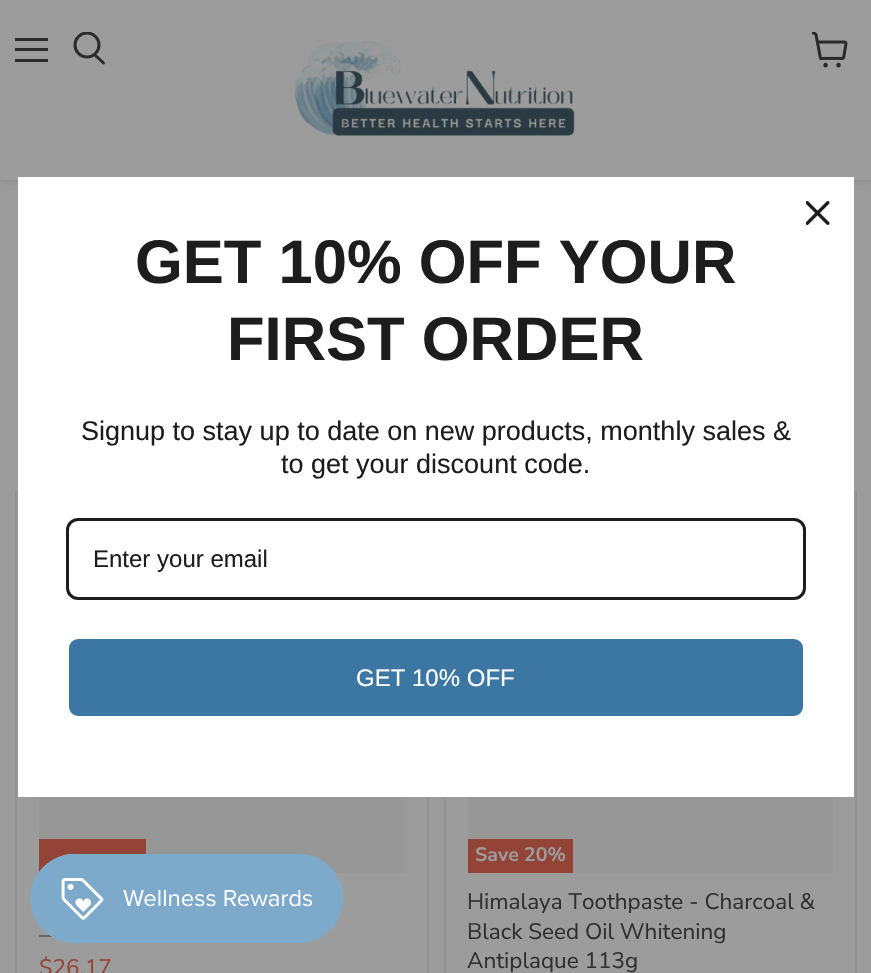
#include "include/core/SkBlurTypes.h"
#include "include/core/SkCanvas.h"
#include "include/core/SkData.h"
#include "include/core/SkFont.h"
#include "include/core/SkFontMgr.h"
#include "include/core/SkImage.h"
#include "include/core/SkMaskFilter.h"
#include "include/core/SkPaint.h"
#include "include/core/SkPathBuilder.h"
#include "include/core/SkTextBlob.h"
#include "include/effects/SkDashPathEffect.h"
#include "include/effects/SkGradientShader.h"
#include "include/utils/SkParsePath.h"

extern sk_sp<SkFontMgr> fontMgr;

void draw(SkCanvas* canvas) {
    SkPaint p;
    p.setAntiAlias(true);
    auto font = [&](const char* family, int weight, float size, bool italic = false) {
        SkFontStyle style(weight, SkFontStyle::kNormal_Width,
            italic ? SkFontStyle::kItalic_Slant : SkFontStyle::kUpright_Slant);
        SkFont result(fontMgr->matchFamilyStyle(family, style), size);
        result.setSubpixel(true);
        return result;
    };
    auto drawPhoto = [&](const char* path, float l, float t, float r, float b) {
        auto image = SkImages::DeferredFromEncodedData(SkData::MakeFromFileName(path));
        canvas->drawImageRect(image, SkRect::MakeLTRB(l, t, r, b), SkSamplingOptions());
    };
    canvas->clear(0xFF9C9C9C);
    canvas->save();
    canvas->clipRect(SkRect::MakeLTRB(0, 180, 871, 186));
    p.setColor(0x405C5C5C);
    p.setMaskFilter(SkMaskFilter::MakeBlur(kNormal_SkBlurStyle, 3));
    canvas->drawRect(SkRect::MakeLTRB(0, 2, 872, 182), p);
    p.setMaskFilter(nullptr);
    canvas->restore();
    {
        const struct { float l, t, r, b; SkColor color; } items[] = {
            {15, 38, 48, 41, 0xFF2B2B2B},
            {15, 48, 48, 51, 0xFF2B2B2B},
            {15, 59, 48, 62, 0xFF2B2B2B},
        };
        for (auto [l, t, r, b, color] : items) {
            p.setColor(color);
            canvas->drawRect(SkRect::MakeLTRB(l, t, r, b), p);
        }
    }
    p.setStyle(SkPaint::kStroke_Style);
    p.setStrokeWidth(3);
    p.setStrokeCap(SkPaint::kRound_Cap);
    canvas->drawPath(SkPathBuilder().moveTo(103.5f, 63).lineTo(95, 55).detach(), p);
    canvas->save();
    canvas->clipRect(SkRect::MakeLTRB(72, 32, 107, 68));
    p.setStrokeCap(SkPaint::kButt_Cap);
    canvas->drawCircle(87, 45, 12, p);
    canvas->restore();
    drawPhoto("media/1.png", 294, 41, 575, 136);
    drawPhoto("media/2.png", 812, 32, 848, 68);
    p.setStrokeWidth(2);
    p.setColor(0xFF929292);
    canvas->drawRect(SkRect::MakeLTRB(16, 492, 428, 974), p);
    canvas->drawRect(SkRect::MakeLTRB(445, 492, 856, 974), p);
    p.setStyle(SkPaint::kFill_Style);
    p.setColor(0xFFFFFFFF);
    canvas->drawRect(SkRect::MakeLTRB(18, 177, 854, 797), p);
    drawPhoto("media/3.png", 806, 201, 830, 225);
    auto font1 = font("Liberation Sans", 700, 61.5f);
    p.setColor(0xFF1D1D1D);
    canvas->drawString("GET 10% OFF YOUR", 135, 283, font1, p);
    canvas->drawString("FIRST ORDER", 227, 360, font1, p);
    auto font2 = font("Liberation Sans", 400, 27);
    canvas->drawString("Signup to stay up to date on new products, monthly sales &", 81, 440, font2, p);
    canvas->drawString("to get your discount code.", 281, 473, font2, p);
    p.setStyle(SkPaint::kStroke_Style);
    p.setStrokeWidth(3);
    canvas->drawRoundRect(SkRect::MakeLTRB(67.5f, 519.5f, 804.5f, 598.5f), 10.5f, 10.5f, p);
    auto font3 = font("Liberation Sans", 400, 24);
    p.setStyle(SkPaint::kFill_Style);
    canvas->drawString("Enter your email", 93, 567, font3, p);
    p.setColor(0xFF3C77A4);
    canvas->drawRoundRect(SkRect::MakeLTRB(67.5f, 637.5f, 804.5f, 717.5f), 10.5f, 10.5f, p);
    p.setStyle(SkPaint::kStroke_Style);
    p.setColor(0xFFFFFFFF);
    canvas->drawRoundRect(SkRect::MakeLTRB(67.5f, 637.5f, 804.5f, 717.5f), 10.5f, 10.5f, p);
    p.setStyle(SkPaint::kFill_Style);
    canvas->drawString("GET 10% OFF", 356, 686, font3, p);
    {
        const struct { float l, t, r, b; SkColor color; } items[] = {
            {39, 797, 405, 873, 0xFF979797},
            {39, 839, 146, 872, 0xFF944437},
            {39, 935, 52, 937, 0xFF666666},
        };
        for (auto [l, t, r, b, color] : items) {
            p.setColor(color);
            canvas->drawRect(SkRect::MakeLTRB(l, t, r, b), p);
        }
    }
    auto font4 = font("Nunito Sans", 400, 22.5f);
    p.setColor(0xFF944437);
    canvas->drawString("$26.17", 39, 975, font4, p);
    p.setColor(0xFF979797);
    canvas->drawRect(SkRect::MakeLTRB(468, 797, 833, 873), p);
    p.setColor(0xFF944437);
    canvas->drawRect(SkRect::MakeLTRB(468, 839, 573, 873), p);
    auto font5 = font("Nunito Sans", 700, 19.5f);
    p.setColor(0xFF9C9C9C);
    canvas->drawString("Save 20%", 475, 861, font5, p);
    p.setColor(0xFF2F2F2F);
    {
        const struct { const char* s; float x, y; } items[] = {
            {"Himalaya Toothpaste - Charcoal &", 467, 909},
            {"Black Seed Oil Whitening", 467, 939},
            {"Antiplaque 113g", 467, 968},
        };
        for (auto [s, x, y] : items) {
            canvas->drawString(s, x, y, font4, p);
        }
    }
    drawPhoto("media/4.png", 30, 853, 344, 943);
}
